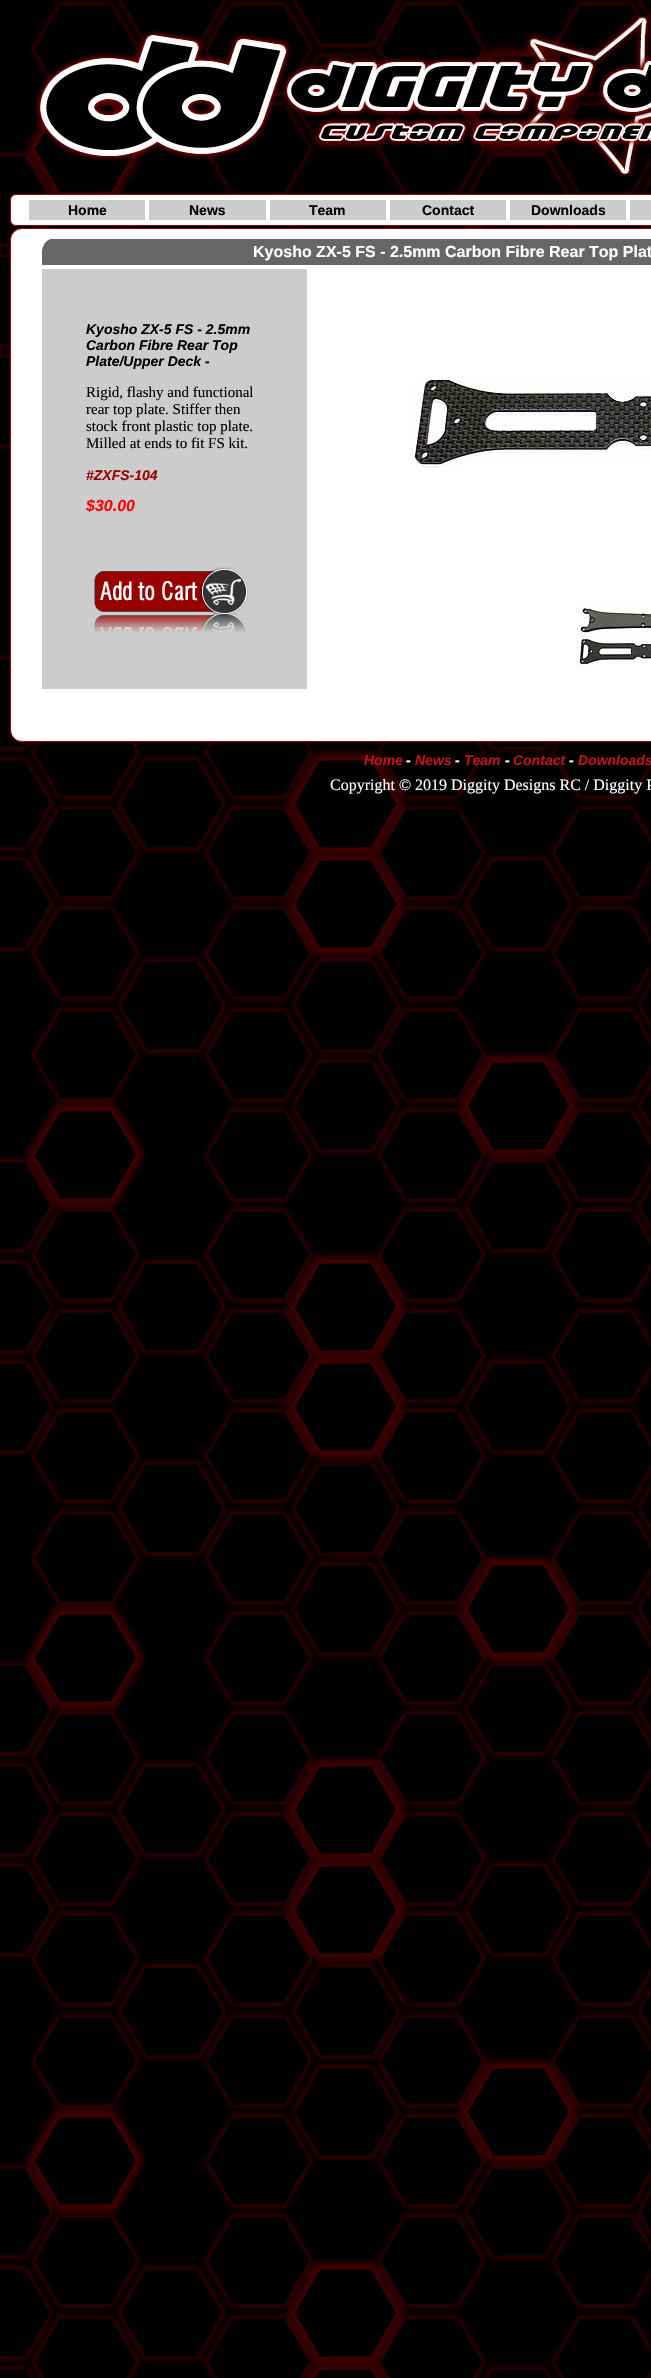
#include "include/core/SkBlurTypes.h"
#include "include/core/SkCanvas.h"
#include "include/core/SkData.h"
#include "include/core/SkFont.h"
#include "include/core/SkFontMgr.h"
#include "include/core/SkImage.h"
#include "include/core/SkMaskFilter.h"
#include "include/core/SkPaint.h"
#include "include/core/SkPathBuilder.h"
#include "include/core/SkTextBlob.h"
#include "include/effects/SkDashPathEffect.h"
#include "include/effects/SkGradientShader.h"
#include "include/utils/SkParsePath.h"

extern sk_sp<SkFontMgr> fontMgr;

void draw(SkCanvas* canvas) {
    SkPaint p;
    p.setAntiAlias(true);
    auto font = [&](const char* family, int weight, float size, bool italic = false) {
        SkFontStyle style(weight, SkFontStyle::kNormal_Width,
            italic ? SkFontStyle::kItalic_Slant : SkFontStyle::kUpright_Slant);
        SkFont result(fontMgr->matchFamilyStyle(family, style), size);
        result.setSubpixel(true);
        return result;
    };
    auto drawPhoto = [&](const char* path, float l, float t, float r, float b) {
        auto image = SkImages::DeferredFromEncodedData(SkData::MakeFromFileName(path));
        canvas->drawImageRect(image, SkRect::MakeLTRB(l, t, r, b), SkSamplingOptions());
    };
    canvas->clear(0xFFFFFFFF);
    drawPhoto("media/1.png", 0, 0, 651, 2378);
    drawPhoto("media/2.png", 35, 16, 651, 176);
    p.setColor(0xFFFFFFFF);
    canvas->drawRoundRect(SkRect::MakeLTRB(10.5f, 194.5f, 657.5f, 225.5f), 5.5f, 5.5f, p);
    p.setStyle(SkPaint::kStroke_Style);
    p.setStrokeWidth(1);
    p.setColor(0xFF990000);
    canvas->drawRoundRect(SkRect::MakeLTRB(10.5f, 194.5f, 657.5f, 225.5f), 5.5f, 5.5f, p);
    p.setStyle(SkPaint::kFill_Style);
    p.setColor(0xFFCCCCCC);
    canvas->drawRect(SkRect::MakeLTRB(29, 200, 145, 220), p);
    auto font1 = font("Liberation Sans", 700, 14);
    p.setColor(0xFF000000);
    canvas->drawString("Home", 68, 215, font1, p);
    p.setColor(0xFFCCCCCC);
    canvas->drawRect(SkRect::MakeLTRB(149, 200, 266, 220), p);
    p.setColor(0xFF000000);
    canvas->drawString("News", 189, 215, font1, p);
    p.setColor(0xFFCCCCCC);
    canvas->drawRect(SkRect::MakeLTRB(270, 200, 386, 220), p);
    p.setColor(0xFF000000);
    canvas->drawString("Team", 309, 215, font1, p);
    p.setColor(0xFFCCCCCC);
    canvas->drawRect(SkRect::MakeLTRB(390, 200, 506, 220), p);
    p.setColor(0xFF000000);
    canvas->drawString("Contact", 422, 215, font1, p);
    p.setColor(0xFFCCCCCC);
    canvas->drawRect(SkRect::MakeLTRB(510, 200, 626, 220), p);
    p.setColor(0xFF000000);
    canvas->drawString("Downloads", 531, 215, font1, p);
    p.setColor(0xFFCCCCCC);
    canvas->drawRect(SkRect::MakeLTRB(630, 200, 651, 220), p);
    p.setColor(0xFFFFFFFF);
    canvas->drawRoundRect(SkRect::MakeLTRB(10.5f, 228.5f, 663.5f, 741.5f), 11.5f, 11.5f, p);
    p.setStyle(SkPaint::kStroke_Style);
    p.setColor(0xFF990000);
    canvas->drawRoundRect(SkRect::MakeLTRB(10.5f, 228.5f, 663.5f, 741.5f), 11.5f, 11.5f, p);
    drawPhoto("media/3.png", 42, 239, 651, 265);
    auto font2 = font("Liberation Sans", 700, 16);
    p.setStyle(SkPaint::kFill_Style);
    p.setColor(0xFFFFFFFF);
    canvas->drawString("Kyosho ZX-5 FS - 2.5mm Carbon Fibre Rear Top Plat", 253, 257, font2, p);
    p.setColor(0xFFCCCCCC);
    canvas->drawRect(SkRect::MakeLTRB(42, 269, 307, 689), p);
    auto font3 = font("Liberation Sans", 700, 14, true);
    p.setColor(0xFF000000);
    {
        const struct { const char* s; float x, y; } items[] = {
            {"Kyosho ZX-5 FS - 2.5mm", 86, 334},
            {"Carbon Fibre Rear Top", 86, 350},
            {"Plate/Upper Deck -", 86, 366},
        };
        for (auto [s, x, y] : items) {
            canvas->drawString(s, x, y, font3, p);
        }
    }
    auto font4 = font("Liberation Serif", 400, 15);
    {
        const struct { const char* s; float x, y; } items[] = {
            {"Rigid, flashy and functional", 86, 397},
            {"rear top plate. Stiffer then", 86, 414},
            {"stock front plastic top plate.", 86, 431},
            {"Milled at ends to fit FS kit.", 86, 448},
        };
        for (auto [s, x, y] : items) {
            canvas->drawString(s, x, y, font4, p);
        }
    }
    p.setColor(0xFF990000);
    canvas->drawString("#ZXFS-104", 86, 480, font3, p);
    auto font5 = font("Liberation Sans", 700, 16, true);
    p.setColor(0xFFFF0000);
    canvas->drawString("$30.00", 86, 511, font5, p);
    drawPhoto("media/4.png", 94, 567, 248, 632);
    drawPhoto("media/5.png", 409, 379, 651, 468);
    drawPhoto("media/6.png", 576, 602, 651, 666);
    p.setColor(0xFFBD151A);
    canvas->drawString("Home", 364, 765, font3, p);
    p.setColor(0xFFFFFFFF);
    canvas->drawString("-", 406, 765, font3, p);
    p.setColor(0xFFBD151A);
    canvas->drawString("News", 415, 765, font3, p);
    p.setColor(0xFFFFFFFF);
    canvas->drawString("-", 455, 765, font3, p);
    p.setColor(0xFFBD151A);
    canvas->drawString("Team", 464, 765, font3, p);
    p.setColor(0xFFFFFFFF);
    canvas->drawString("-", 505, 765, font3, p);
    p.setColor(0xFFBD151A);
    canvas->drawString("Contact", 513, 765, font3, p);
    p.setColor(0xFFFFFFFF);
    canvas->drawString("-", 569, 765, font3, p);
    p.setColor(0xFFBD151A);
    canvas->drawString("Downloads", 578, 765, font3, p);
    auto font6 = font("Liberation Serif", 400, 16);
    p.setColor(0xFFFFFFFF);
    canvas->drawString("Copyright © 2019 Diggity Designs RC / Diggity P", 330, 790, font6, p);
}
